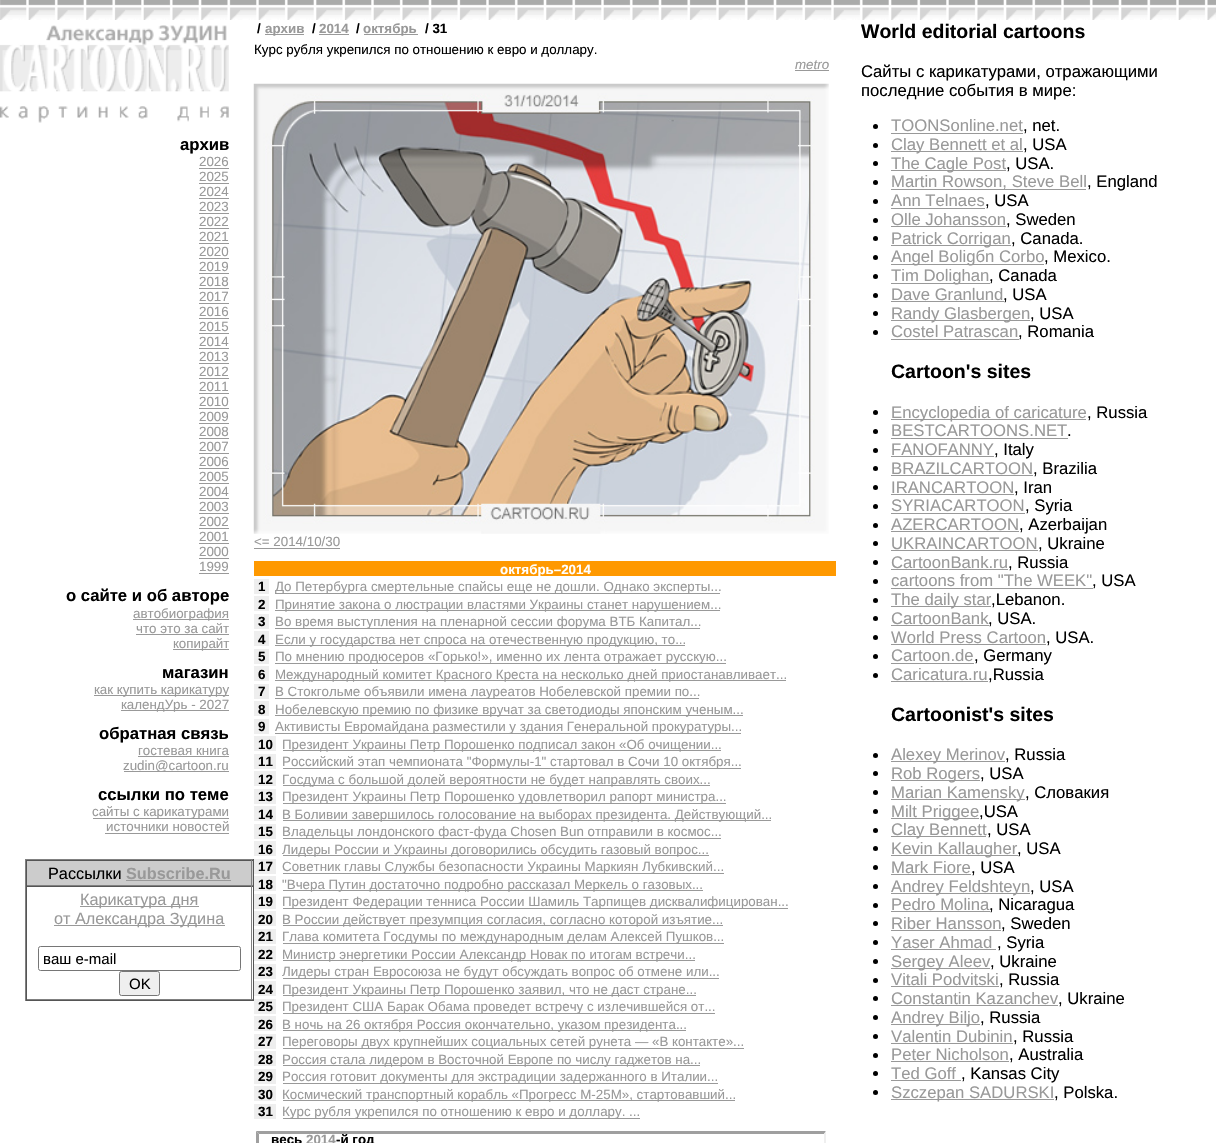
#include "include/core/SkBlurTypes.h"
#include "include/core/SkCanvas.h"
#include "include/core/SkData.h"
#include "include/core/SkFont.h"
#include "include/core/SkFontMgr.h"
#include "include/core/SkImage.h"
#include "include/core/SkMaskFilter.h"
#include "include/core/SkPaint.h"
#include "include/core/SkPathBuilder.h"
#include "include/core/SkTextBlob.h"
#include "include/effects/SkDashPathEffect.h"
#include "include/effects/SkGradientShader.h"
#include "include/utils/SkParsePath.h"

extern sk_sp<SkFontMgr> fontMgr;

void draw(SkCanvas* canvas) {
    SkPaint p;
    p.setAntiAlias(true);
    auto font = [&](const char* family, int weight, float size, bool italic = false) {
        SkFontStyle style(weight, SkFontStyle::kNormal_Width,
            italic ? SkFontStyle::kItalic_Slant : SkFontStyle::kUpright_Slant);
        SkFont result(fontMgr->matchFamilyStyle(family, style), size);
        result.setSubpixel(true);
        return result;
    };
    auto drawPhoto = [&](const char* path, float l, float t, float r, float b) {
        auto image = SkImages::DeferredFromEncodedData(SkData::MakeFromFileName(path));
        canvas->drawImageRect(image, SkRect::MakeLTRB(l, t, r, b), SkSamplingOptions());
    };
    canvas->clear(0xFFFFFFFF);
    drawPhoto("media/1.png", 0, 0, 1216, 20);
    drawPhoto("media/2.png", 0, 25, 229, 92);
    drawPhoto("media/3.png", 0, 106, 229, 123);
    auto font1 = font("Liberation Sans", 700, 16.7f);
    p.setColor(0xFF000000);
    canvas->drawString("архив", 180, 150, font1, p);
    auto font2 = font("Liberation Sans", 400, 13.35f);
    p.setColor(0xFF999999);
    canvas->drawString("2026", 199, 166, font2, p);
    canvas->drawRect(SkRect::MakeLTRB(199, 168, 229, 169), p);
    canvas->drawString("2025", 199, 181, font2, p);
    canvas->drawRect(SkRect::MakeLTRB(199, 183, 229, 184), p);
    canvas->drawString("2024", 199, 196, font2, p);
    canvas->drawRect(SkRect::MakeLTRB(199, 198, 229, 199), p);
    canvas->drawString("2023", 199, 211, font2, p);
    canvas->drawRect(SkRect::MakeLTRB(199, 213, 229, 214), p);
    canvas->drawString("2022", 199, 226, font2, p);
    canvas->drawRect(SkRect::MakeLTRB(199, 228, 229, 229), p);
    canvas->drawString("2021", 199, 241, font2, p);
    canvas->drawRect(SkRect::MakeLTRB(199, 243, 229, 244), p);
    canvas->drawString("2020", 199, 256, font2, p);
    canvas->drawRect(SkRect::MakeLTRB(199, 258, 229, 259), p);
    canvas->drawString("2019", 199, 271, font2, p);
    canvas->drawRect(SkRect::MakeLTRB(199, 273, 229, 274), p);
    canvas->drawString("2018", 199, 286, font2, p);
    canvas->drawRect(SkRect::MakeLTRB(199, 288, 229, 289), p);
    canvas->drawString("2017", 199, 301, font2, p);
    canvas->drawRect(SkRect::MakeLTRB(199, 303, 229, 304), p);
    canvas->drawString("2016", 199, 316, font2, p);
    canvas->drawRect(SkRect::MakeLTRB(199, 318, 229, 319), p);
    canvas->drawString("2015", 199, 331, font2, p);
    canvas->drawRect(SkRect::MakeLTRB(199, 333, 229, 334), p);
    canvas->drawString("2014", 199, 346, font2, p);
    canvas->drawRect(SkRect::MakeLTRB(199, 348, 229, 349), p);
    canvas->drawString("2013", 199, 361, font2, p);
    canvas->drawRect(SkRect::MakeLTRB(199, 363, 229, 364), p);
    canvas->drawString("2012", 199, 376, font2, p);
    canvas->drawRect(SkRect::MakeLTRB(199, 378, 229, 379), p);
    canvas->drawString("2011", 199, 391, font2, p);
    canvas->drawRect(SkRect::MakeLTRB(199, 393, 229, 394), p);
    canvas->drawString("2010", 199, 406, font2, p);
    canvas->drawRect(SkRect::MakeLTRB(199, 408, 229, 409), p);
    canvas->drawString("2009", 199, 421, font2, p);
    canvas->drawRect(SkRect::MakeLTRB(199, 423, 229, 424), p);
    canvas->drawString("2008", 199, 436, font2, p);
    canvas->drawRect(SkRect::MakeLTRB(199, 438, 229, 439), p);
    canvas->drawString("2007", 199, 451, font2, p);
    canvas->drawRect(SkRect::MakeLTRB(199, 453, 229, 454), p);
    canvas->drawString("2006", 199, 466, font2, p);
    canvas->drawRect(SkRect::MakeLTRB(199, 468, 229, 469), p);
    canvas->drawString("2005", 199, 481, font2, p);
    canvas->drawRect(SkRect::MakeLTRB(199, 483, 229, 484), p);
    canvas->drawString("2004", 199, 496, font2, p);
    canvas->drawRect(SkRect::MakeLTRB(199, 498, 229, 499), p);
    canvas->drawString("2003", 199, 511, font2, p);
    canvas->drawRect(SkRect::MakeLTRB(199, 513, 229, 514), p);
    canvas->drawString("2002", 199, 526, font2, p);
    canvas->drawRect(SkRect::MakeLTRB(199, 528, 229, 529), p);
    canvas->drawString("2001", 199, 541, font2, p);
    canvas->drawRect(SkRect::MakeLTRB(199, 543, 229, 544), p);
    canvas->drawString("2000", 199, 556, font2, p);
    canvas->drawRect(SkRect::MakeLTRB(199, 558, 229, 559), p);
    canvas->drawString("1999", 199, 571, font2, p);
    canvas->drawRect(SkRect::MakeLTRB(199, 573, 229, 574), p);
    p.setColor(0xFF000000);
    canvas->drawString("о сайте и об авторе", 66, 601, font1, p);
    p.setColor(0xFF999999);
    canvas->drawRect(SkRect::MakeLTRB(133, 619, 229, 620), p);
    canvas->drawString("автобиография", 133, 618, font2, p);
    canvas->drawString("что это за сайт", 136, 633, font2, p);
    canvas->drawRect(SkRect::MakeLTRB(136, 634, 229, 635), p);
    canvas->drawRect(SkRect::MakeLTRB(173, 649, 229, 650), p);
    canvas->drawString("копирайт", 173, 648, font2, p);
    p.setColor(0xFF000000);
    canvas->drawString("магазин", 162, 678, font1, p);
    p.setColor(0xFF999999);
    canvas->drawRect(SkRect::MakeLTRB(94, 695, 229, 696), p);
    canvas->drawString("как купить карикатуру", 94, 694, font2, p);
    canvas->drawRect(SkRect::MakeLTRB(121, 710, 229, 711), p);
    canvas->drawString("календУрь - 2027", 121, 709, font2, p);
    p.setColor(0xFF000000);
    canvas->drawString("обратная связь", 99, 739, font1, p);
    p.setColor(0xFF999999);
    canvas->drawString("гостевая книга", 138, 755, font2, p);
    canvas->drawRect(SkRect::MakeLTRB(138, 756, 229, 757), p);
    canvas->drawRect(SkRect::MakeLTRB(124, 771, 229, 772), p);
    canvas->drawString("zudin@cartoon.ru", 123, 770, font2, p);
    p.setColor(0xFF000000);
    canvas->drawString("ссылки по теме", 98, 800, font1, p);
    p.setColor(0xFF999999);
    canvas->drawRect(SkRect::MakeLTRB(93, 818, 229, 819), p);
    canvas->drawString("сайты с карикатурами", 92, 816, font2, p);
    canvas->drawString("источники новостей", 106, 831, font2, p);
    {
        const struct { float l, t, r, b; SkColor color; } items[] = {
            {105, 833, 229, 834, 0xFF999999},
            {25, 859, 254, 860, 0xFF808080},
            {253, 859, 254, 1001, 0xFF555555},
            {25, 1000, 254, 1001, 0xFF555555},
            {25, 859, 26, 1001, 0xFF808080},
            {27, 861, 253, 885, 0xFFCCCCCC},
            {26, 860, 253, 861, 0xFF555555},
            {251, 860, 252, 886, 0xFF808080},
            {26, 885, 253, 886, 0xFF808080},
            {26, 860, 27, 886, 0xFF555555},
        };
        for (auto [l, t, r, b, color] : items) {
            p.setColor(color);
            canvas->drawRect(SkRect::MakeLTRB(l, t, r, b), p);
        }
    }
    auto font3 = font("Liberation Sans", 400, 16.25f);
    p.setColor(0xFF000000);
    canvas->drawString("Рассылки", 48, 879, font3, p);
    auto font4 = font("Liberation Sans", 700, 16.25f);
    p.setColor(0xFF999999);
    canvas->drawString("Subscribe.Ru", 126, 879, font4, p);
    {
        const struct { float l, t, r, b; SkColor color; } items[] = {
            {126, 880, 231, 881, 0xFF999999},
            {26, 886, 253, 887, 0xFF555555},
            {251, 886, 252, 1000, 0xFF808080},
            {26, 999, 253, 1000, 0xFF808080},
            {26, 886, 27, 1000, 0xFF555555},
            {80, 906, 199, 907, 0xFF999999},
        };
        for (auto [l, t, r, b, color] : items) {
            p.setColor(color);
            canvas->drawRect(SkRect::MakeLTRB(l, t, r, b), p);
        }
    }
    canvas->drawString("Карикатура дня", 80, 905, font3, p);
    canvas->drawRect(SkRect::MakeLTRB(54, 925, 225, 926), p);
    canvas->drawString("от Александра Зудина", 54, 924, font3, p);
    p.setStyle(SkPaint::kStroke_Style);
    p.setStrokeWidth(1);
    p.setColor(0xFF767676);
    canvas->drawRoundRect(SkRect::MakeLTRB(38.5f, 946.5f, 240.5f, 970.5f), 2, 2, p);
    auto font5 = font("Liberation Sans", 400, 15);
    p.setStyle(SkPaint::kFill_Style);
    p.setColor(0xFF000000);
    canvas->drawString("ваш e-mail", 43, 964, font5, p);
    p.setColor(0xFFEFEFEF);
    canvas->drawRoundRect(SkRect::MakeLTRB(119.5f, 971.5f, 159.5f, 995.5f), 2, 2, p);
    p.setStyle(SkPaint::kStroke_Style);
    p.setColor(0xFF767676);
    canvas->drawRoundRect(SkRect::MakeLTRB(119.5f, 971.5f, 159.5f, 995.5f), 2, 2, p);
    p.setStyle(SkPaint::kFill_Style);
    p.setColor(0xFF000000);
    canvas->drawString("OK", 129, 989, font5, p);
    auto font6 = font("Liberation Sans", 700, 13.35f);
    canvas->drawString("/", 257, 33, font6, p);
    p.setColor(0xFF999999);
    canvas->drawRect(SkRect::MakeLTRB(265, 34, 304, 35), p);
    canvas->drawString("архив", 265, 33, font6, p);
    p.setColor(0xFF000000);
    canvas->drawString("/", 312, 33, font6, p);
    p.setColor(0xFF999999);
    canvas->drawString("2014", 319, 33, font6, p);
    canvas->drawRect(SkRect::MakeLTRB(319, 34, 349, 35), p);
    p.setColor(0xFF000000);
    canvas->drawString("/", 356, 33, font6, p);
    p.setColor(0xFF999999);
    canvas->drawRect(SkRect::MakeLTRB(364, 34, 418, 35), p);
    canvas->drawString("октябрь", 363, 33, font6, p);
    p.setColor(0xFF000000);
    canvas->drawString("/ 31", 425, 33, font6, p);
    canvas->drawString("Курс рубля укрепился по отношению к евро и доллару.", 254, 54, font2, p);
    auto font7 = font("Liberation Sans", 400, 13.35f, true);
    p.setColor(0xFF999999);
    canvas->drawString("metro", 795, 69, font7, p);
    canvas->drawRect(SkRect::MakeLTRB(795, 70, 829, 71), p);
    drawPhoto("media/4.png", 253, 83, 829, 534);
    canvas->drawString("<= 2014/10/30", 254, 546, font2, p);
    canvas->drawRect(SkRect::MakeLTRB(254, 548, 340, 549), p);
    p.setColor(0xFFFF9900);
    canvas->drawRect(SkRect::MakeLTRB(254, 561, 836, 576), p);
    p.setColor(0xFFFFFFFF);
    canvas->drawString("октябрь–2014", 500, 574, font6, p);
    p.setColor(0xFFEEEEEE);
    canvas->drawRect(SkRect::MakeLTRB(254, 579, 269, 594), p);
    p.setColor(0xFF000000);
    canvas->drawString("1", 258, 591, font6, p);
    p.setColor(0xFF999999);
    canvas->drawRect(SkRect::MakeLTRB(275, 593, 720, 594), p);
    canvas->drawString("До Петербурга смертельные спайсы еще не дошли. Однако эксперты...", 275, 591, font2, p);
    p.setColor(0xFFEEEEEE);
    canvas->drawRect(SkRect::MakeLTRB(254, 596, 269, 611), p);
    p.setColor(0xFF000000);
    canvas->drawString("2", 258, 609, font6, p);
    p.setColor(0xFF999999);
    canvas->drawRect(SkRect::MakeLTRB(275, 610, 720, 611), p);
    canvas->drawString("Принятие закона о люстрации властями Украины станет нарушением...", 275, 609, font2, p);
    p.setColor(0xFFEEEEEE);
    canvas->drawRect(SkRect::MakeLTRB(254, 614, 269, 629), p);
    p.setColor(0xFF000000);
    canvas->drawString("3", 258, 626, font6, p);
    p.setColor(0xFF999999);
    canvas->drawRect(SkRect::MakeLTRB(275, 628, 700, 629), p);
    canvas->drawString("Во время выступления на пленарной сессии форума ВТБ Капитал...", 275, 626, font2, p);
    p.setColor(0xFFEEEEEE);
    canvas->drawRect(SkRect::MakeLTRB(254, 631, 269, 646), p);
    p.setColor(0xFF000000);
    canvas->drawString("4", 258, 644, font6, p);
    p.setColor(0xFF999999);
    canvas->drawRect(SkRect::MakeLTRB(275, 645, 685, 646), p);
    canvas->drawString("Если у государства нет спроса на отечественную продукцию, то...", 275, 644, font2, p);
    p.setColor(0xFFEEEEEE);
    canvas->drawRect(SkRect::MakeLTRB(254, 649, 269, 664), p);
    p.setColor(0xFF000000);
    canvas->drawString("5", 258, 661, font6, p);
    p.setColor(0xFF999999);
    canvas->drawRect(SkRect::MakeLTRB(275, 663, 726, 664), p);
    canvas->drawString("По мнению продюсеров «Горько!», именно их лента отражает русскую...", 275, 661, font2, p);
    p.setColor(0xFFEEEEEE);
    canvas->drawRect(SkRect::MakeLTRB(254, 666, 269, 681), p);
    p.setColor(0xFF000000);
    canvas->drawString("6", 258, 679, font6, p);
    p.setColor(0xFF999999);
    canvas->drawRect(SkRect::MakeLTRB(275, 680, 786, 681), p);
    canvas->drawString("Международный комитет Красного Креста на несколько дней приостанавливает...", 275, 679, font2, p);
    p.setColor(0xFFEEEEEE);
    canvas->drawRect(SkRect::MakeLTRB(254, 684, 269, 699), p);
    p.setColor(0xFF000000);
    canvas->drawString("7", 258, 696, font6, p);
    p.setColor(0xFF999999);
    canvas->drawRect(SkRect::MakeLTRB(275, 698, 699, 699), p);
    canvas->drawString("В Стокгольме объявили имена лауреатов Нобелевской премии по...", 275, 696, font2, p);
    p.setColor(0xFFEEEEEE);
    canvas->drawRect(SkRect::MakeLTRB(254, 701, 269, 716), p);
    p.setColor(0xFF000000);
    canvas->drawString("8", 258, 714, font6, p);
    p.setColor(0xFF999999);
    canvas->drawRect(SkRect::MakeLTRB(275, 715, 743, 716), p);
    canvas->drawString("Нобелевскую премию по физике вручат за светодиоды японским ученым...", 275, 714, font2, p);
    p.setColor(0xFFEEEEEE);
    canvas->drawRect(SkRect::MakeLTRB(254, 719, 269, 734), p);
    p.setColor(0xFF000000);
    canvas->drawString("9", 258, 731, font6, p);
    p.setColor(0xFF999999);
    canvas->drawRect(SkRect::MakeLTRB(275, 733, 741, 734), p);
    canvas->drawString("Активисты Евромайдана разместили у здания Генеральной прокуратуры...", 275, 731, font2, p);
    p.setColor(0xFFEEEEEE);
    canvas->drawRect(SkRect::MakeLTRB(254, 736, 276, 751), p);
    p.setColor(0xFF000000);
    canvas->drawString("10", 258, 749, font6, p);
    p.setColor(0xFF999999);
    canvas->drawRect(SkRect::MakeLTRB(283, 750, 721, 751), p);
    canvas->drawString("Президент Украины Петр Порошенко подписал закон «Об очищении...", 282, 749, font2, p);
    p.setColor(0xFFEEEEEE);
    canvas->drawRect(SkRect::MakeLTRB(254, 754, 276, 769), p);
    p.setColor(0xFF000000);
    canvas->drawString("11", 258, 766, font6, p);
    p.setColor(0xFF999999);
    canvas->drawRect(SkRect::MakeLTRB(283, 768, 741, 769), p);
    canvas->drawString("Российский этап чемпионата \"Формулы-1\" стартовал в Сочи 10 октября...", 282, 766, font2, p);
    p.setColor(0xFFEEEEEE);
    canvas->drawRect(SkRect::MakeLTRB(254, 771, 276, 786), p);
    p.setColor(0xFF000000);
    canvas->drawString("12", 258, 784, font6, p);
    p.setColor(0xFF999999);
    canvas->drawRect(SkRect::MakeLTRB(283, 785, 710, 786), p);
    canvas->drawString("Госдума с большой долей вероятности не будет направлять своих...", 282, 784, font2, p);
    p.setColor(0xFFEEEEEE);
    canvas->drawRect(SkRect::MakeLTRB(254, 789, 276, 804), p);
    p.setColor(0xFF000000);
    canvas->drawString("13", 258, 801, font6, p);
    p.setColor(0xFF999999);
    canvas->drawRect(SkRect::MakeLTRB(283, 803, 726, 804), p);
    canvas->drawString("Президент Украины Петр Порошенко удовлетворил рапорт министра...", 282, 801, font2, p);
    p.setColor(0xFFEEEEEE);
    canvas->drawRect(SkRect::MakeLTRB(254, 806, 276, 821), p);
    p.setColor(0xFF000000);
    canvas->drawString("14", 258, 819, font6, p);
    p.setColor(0xFF999999);
    canvas->drawRect(SkRect::MakeLTRB(283, 820, 771, 821), p);
    canvas->drawString("В Боливии завершилось голосование на выборах президента. Действующий...", 282, 819, font2, p);
    p.setColor(0xFFEEEEEE);
    canvas->drawRect(SkRect::MakeLTRB(254, 824, 276, 839), p);
    p.setColor(0xFF000000);
    canvas->drawString("15", 258, 836, font6, p);
    p.setColor(0xFF999999);
    canvas->drawRect(SkRect::MakeLTRB(283, 838, 721, 839), p);
    canvas->drawString("Владельцы лондонского фаст-фуда Chosen Bun отправили в космос...", 282, 836, font2, p);
    p.setColor(0xFFEEEEEE);
    canvas->drawRect(SkRect::MakeLTRB(254, 841, 276, 856), p);
    p.setColor(0xFF000000);
    canvas->drawString("16", 258, 854, font6, p);
    p.setColor(0xFF999999);
    canvas->drawRect(SkRect::MakeLTRB(283, 855, 709, 856), p);
    canvas->drawString("Лидеры России и Украины договорились обсудить газовый вопрос...", 282, 854, font2, p);
    p.setColor(0xFFEEEEEE);
    canvas->drawRect(SkRect::MakeLTRB(254, 859, 276, 874), p);
    p.setColor(0xFF000000);
    canvas->drawString("17", 258, 871, font6, p);
    p.setColor(0xFF999999);
    canvas->drawRect(SkRect::MakeLTRB(283, 873, 724, 874), p);
    canvas->drawString("Советник главы Службы безопасности Украины Маркиян Лубкивский...", 282, 871, font2, p);
    p.setColor(0xFFEEEEEE);
    canvas->drawRect(SkRect::MakeLTRB(254, 876, 276, 891), p);
    p.setColor(0xFF000000);
    canvas->drawString("18", 258, 889, font6, p);
    p.setColor(0xFF999999);
    canvas->drawRect(SkRect::MakeLTRB(283, 890, 703, 891), p);
    canvas->drawString("\"Вчера Путин достаточно подробно рассказал Меркель о газовых...", 282, 889, font2, p);
    p.setColor(0xFFEEEEEE);
    canvas->drawRect(SkRect::MakeLTRB(254, 894, 276, 909), p);
    p.setColor(0xFF000000);
    canvas->drawString("19", 258, 906, font6, p);
    p.setColor(0xFF999999);
    canvas->drawRect(SkRect::MakeLTRB(283, 908, 788, 909), p);
    canvas->drawString("Президент Федерации тенниса России Шамиль Тарпищев дисквалифицирован...", 282, 906, font2, p);
    p.setColor(0xFFEEEEEE);
    canvas->drawRect(SkRect::MakeLTRB(254, 911, 276, 926), p);
    p.setColor(0xFF000000);
    canvas->drawString("20", 258, 924, font6, p);
    p.setColor(0xFF999999);
    canvas->drawRect(SkRect::MakeLTRB(283, 925, 723, 926), p);
    canvas->drawString("В России действует презумпция согласия, согласно которой изъятие...", 282, 924, font2, p);
    p.setColor(0xFFEEEEEE);
    canvas->drawRect(SkRect::MakeLTRB(254, 929, 276, 944), p);
    p.setColor(0xFF000000);
    canvas->drawString("21", 258, 941, font6, p);
    p.setColor(0xFF999999);
    canvas->drawRect(SkRect::MakeLTRB(283, 943, 724, 944), p);
    canvas->drawString("Глава комитета Госдумы по международным делам Алексей Пушков...", 282, 941, font2, p);
    p.setColor(0xFFEEEEEE);
    canvas->drawRect(SkRect::MakeLTRB(254, 946, 276, 961), p);
    p.setColor(0xFF000000);
    canvas->drawString("22", 258, 959, font6, p);
    p.setColor(0xFF999999);
    canvas->drawRect(SkRect::MakeLTRB(283, 960, 695, 961), p);
    canvas->drawString("Министр энергетики России Александр Новак по итогам встречи...", 282, 959, font2, p);
    p.setColor(0xFFEEEEEE);
    canvas->drawRect(SkRect::MakeLTRB(254, 964, 276, 979), p);
    p.setColor(0xFF000000);
    canvas->drawString("23", 258, 976, font6, p);
    p.setColor(0xFF999999);
    canvas->drawRect(SkRect::MakeLTRB(283, 978, 719, 979), p);
    canvas->drawString("Лидеры стран Евросоюза не будут обсуждать вопрос об отмене или...", 282, 976, font2, p);
    p.setColor(0xFFEEEEEE);
    canvas->drawRect(SkRect::MakeLTRB(254, 981, 276, 996), p);
    p.setColor(0xFF000000);
    canvas->drawString("24", 258, 994, font6, p);
    p.setColor(0xFF999999);
    canvas->drawRect(SkRect::MakeLTRB(283, 995, 696, 996), p);
    canvas->drawString("Президент Украины Петр Порошенко заявил, что не даст стране...", 282, 994, font2, p);
    p.setColor(0xFFEEEEEE);
    canvas->drawRect(SkRect::MakeLTRB(254, 999, 276, 1014), p);
    p.setColor(0xFF000000);
    canvas->drawString("25", 258, 1011, font6, p);
    p.setColor(0xFF999999);
    canvas->drawRect(SkRect::MakeLTRB(283, 1013, 715, 1014), p);
    canvas->drawString("Президент США Барак Обама проведет встречу с излечившейся от...", 282, 1011, font2, p);
    p.setColor(0xFFEEEEEE);
    canvas->drawRect(SkRect::MakeLTRB(254, 1016, 276, 1031), p);
    p.setColor(0xFF000000);
    canvas->drawString("26", 258, 1029, font6, p);
    p.setColor(0xFF999999);
    canvas->drawRect(SkRect::MakeLTRB(283, 1030, 686, 1031), p);
    canvas->drawString("В ночь на 26 октября Россия окончательно, указом президента...", 282, 1029, font2, p);
    p.setColor(0xFFEEEEEE);
    canvas->drawRect(SkRect::MakeLTRB(254, 1034, 276, 1049), p);
    p.setColor(0xFF000000);
    canvas->drawString("27", 258, 1046, font6, p);
    p.setColor(0xFF999999);
    canvas->drawRect(SkRect::MakeLTRB(283, 1048, 744, 1049), p);
    canvas->drawString("Переговоры двух крупнейших социальных сетей рунета — «В контакте»...", 282, 1046, font2, p);
    p.setColor(0xFFEEEEEE);
    canvas->drawRect(SkRect::MakeLTRB(254, 1051, 276, 1066), p);
    p.setColor(0xFF000000);
    canvas->drawString("28", 258, 1064, font6, p);
    p.setColor(0xFF999999);
    canvas->drawRect(SkRect::MakeLTRB(283, 1065, 700, 1066), p);
    canvas->drawString("Россия стала лидером в Восточной Европе по числу гаджетов на...", 282, 1064, font2, p);
    p.setColor(0xFFEEEEEE);
    canvas->drawRect(SkRect::MakeLTRB(254, 1069, 276, 1084), p);
    p.setColor(0xFF000000);
    canvas->drawString("29", 258, 1081, font6, p);
    p.setColor(0xFF999999);
    canvas->drawRect(SkRect::MakeLTRB(283, 1083, 718, 1084), p);
    canvas->drawString("Россия готовит документы для экстрадиции задержанного в Италии...", 282, 1081, font2, p);
    p.setColor(0xFFEEEEEE);
    canvas->drawRect(SkRect::MakeLTRB(254, 1086, 276, 1101), p);
    p.setColor(0xFF000000);
    canvas->drawString("30", 258, 1099, font6, p);
    p.setColor(0xFF999999);
    canvas->drawRect(SkRect::MakeLTRB(283, 1100, 735, 1101), p);
    canvas->drawString("Космический транспортный корабль «Прогресс М-25М», стартовавший...", 282, 1099, font2, p);
    p.setColor(0xFFEEEEEE);
    canvas->drawRect(SkRect::MakeLTRB(254, 1104, 276, 1119), p);
    p.setColor(0xFF000000);
    canvas->drawString("31", 258, 1116, font6, p);
    p.setColor(0xFF999999);
    canvas->drawRect(SkRect::MakeLTRB(283, 1118, 640, 1119), p);
    canvas->drawString("Курс рубля укрепился по отношению к евро и доллару.", 282, 1116, font2, p);
    canvas->drawString("...", 629, 1116, font2, p);
    p.setColor(0xFF9F9F9F);
    canvas->drawPath(SkPathBuilder().moveTo(256, 1131).lineTo(826, 1131).lineTo(824, 1134).lineTo(259, 1134).close().detach(), p);
    p.setColor(0xFFEFEFEF);
    canvas->drawPath(SkPathBuilder().moveTo(826, 1131).lineTo(826, 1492).lineTo(824, 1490).lineTo(824, 1134).close().detach(), p);
    p.setColor(0xFF9F9F9F);
    canvas->drawPath(SkPathBuilder().moveTo(256, 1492).lineTo(256, 1131).lineTo(259, 1134).lineTo(259, 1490).close().detach(), p);
    p.setColor(0xFF000000);
    canvas->drawString("весь", 271, 1144, font6, p);
    p.setColor(0xFF999999);
    canvas->drawString("2014", 306, 1144, font6, p);
    p.setColor(0xFF000000);
    canvas->drawString("-й год", 336, 1144, font6, p);
    auto font8 = font("Liberation Sans", 700, 19.5f);
    canvas->drawString("World editorial cartoons", 861, 38, font8, p);
    auto font9 = font("Liberation Sans", 400, 16.7f);
    canvas->drawString("Сайты с карикатурами, отражающими", 861, 77, font9, p);
    canvas->drawString("последние события в мире:", 861, 96, font9, p);
    canvas->drawCircle(875.5f, 126.5f, 2.5f, p);
    p.setColor(0xFF999999);
    canvas->drawString("TOONSonline.net", 891, 131, font9, p);
    canvas->drawRect(SkRect::MakeLTRB(891, 133, 1023, 134), p);
    p.setColor(0xFF000000);
    canvas->drawString(", net.", 1023, 131, font9, p);
    canvas->drawCircle(875.5f, 145.5f, 2.5f, p);
    p.setColor(0xFF999999);
    canvas->drawRect(SkRect::MakeLTRB(891, 151, 1023, 152), p);
    canvas->drawString("Clay Bennett et al", 891, 150, font9, p);
    p.setColor(0xFF000000);
    canvas->drawString(", USA", 1023, 150, font9, p);
    canvas->drawCircle(875.5f, 163.5f, 2.5f, p);
    p.setColor(0xFF999999);
    canvas->drawRect(SkRect::MakeLTRB(891, 170, 1006, 171), p);
    canvas->drawString("The Cagle Post", 891, 169, font9, p);
    p.setColor(0xFF000000);
    canvas->drawString(", USA.", 1006, 169, font9, p);
    canvas->drawCircle(875.5f, 182.5f, 2.5f, p);
    p.setColor(0xFF999999);
    canvas->drawRect(SkRect::MakeLTRB(891, 189, 1086, 190), p);
    canvas->drawString("Martin Rowson, Steve Bell", 891, 187, font9, p);
    p.setColor(0xFF000000);
    canvas->drawString(", England", 1087, 187, font9, p);
    canvas->drawCircle(875.5f, 201.5f, 2.5f, p);
    p.setColor(0xFF999999);
    canvas->drawString("Ann Telnaes", 891, 206, font9, p);
    canvas->drawRect(SkRect::MakeLTRB(891, 208, 985, 209), p);
    p.setColor(0xFF000000);
    canvas->drawString(", USA", 985, 206, font9, p);
    canvas->drawCircle(875.5f, 220.5f, 2.5f, p);
    p.setColor(0xFF999999);
    canvas->drawString("Olle Johansson", 891, 225, font9, p);
    canvas->drawRect(SkRect::MakeLTRB(891, 226, 1006, 227), p);
    p.setColor(0xFF000000);
    canvas->drawString(", Sweden", 1006, 225, font9, p);
    canvas->drawCircle(875.5f, 238.5f, 2.5f, p);
    p.setColor(0xFF999999);
    canvas->drawRect(SkRect::MakeLTRB(891, 245, 1011, 246), p);
    canvas->drawString("Patrick Corrigan", 891, 244, font9, p);
    p.setColor(0xFF000000);
    canvas->drawString(", Canada.", 1011, 244, font9, p);
    canvas->drawCircle(875.5f, 257.5f, 2.5f, p);
    p.setColor(0xFF999999);
    canvas->drawRect(SkRect::MakeLTRB(891, 264, 1044, 265), p);
    canvas->drawString("Angel Boligбn Corbo", 891, 262, font9, p);
    p.setColor(0xFF000000);
    canvas->drawString(", Mexico.", 1044, 262, font9, p);
    canvas->drawCircle(875.5f, 276.5f, 2.5f, p);
    p.setColor(0xFF999999);
    canvas->drawRect(SkRect::MakeLTRB(891, 283, 990, 284), p);
    canvas->drawString("Tim Dolighan", 891, 281, font9, p);
    p.setColor(0xFF000000);
    canvas->drawString(", Canada", 989, 281, font9, p);
    canvas->drawCircle(875.5f, 295.5f, 2.5f, p);
    p.setColor(0xFF999999);
    canvas->drawString("Dave Granlund", 891, 300, font9, p);
    canvas->drawRect(SkRect::MakeLTRB(891, 301, 1004, 302), p);
    p.setColor(0xFF000000);
    canvas->drawString(", USA", 1003, 300, font9, p);
    canvas->drawCircle(875.5f, 313.5f, 2.5f, p);
    p.setColor(0xFF999999);
    canvas->drawRect(SkRect::MakeLTRB(891, 320, 1030, 321), p);
    canvas->drawString("Randy Glasbergen", 891, 319, font9, p);
    p.setColor(0xFF000000);
    canvas->drawString(", USA", 1030, 319, font9, p);
    canvas->drawCircle(875.5f, 332.5f, 2.5f, p);
    p.setColor(0xFF999999);
    canvas->drawString("Costel Patrascan", 891, 337, font9, p);
    canvas->drawRect(SkRect::MakeLTRB(891, 339, 1019, 340), p);
    p.setColor(0xFF000000);
    canvas->drawString(", Romania", 1018, 337, font9, p);
    canvas->drawString("Cartoon's sites", 891, 378, font8, p);
    canvas->drawCircle(875.5f, 412.5f, 2.5f, p);
    p.setColor(0xFF999999);
    canvas->drawRect(SkRect::MakeLTRB(891, 419, 1086, 420), p);
    canvas->drawString("Encyclopedia of caricature", 891, 418, font9, p);
    p.setColor(0xFF000000);
    canvas->drawString(", Russia", 1087, 418, font9, p);
    canvas->drawCircle(875.5f, 431.5f, 2.5f, p);
    p.setColor(0xFF999999);
    canvas->drawString("BESTCARTOONS.NET", 891, 436, font9, p);
    canvas->drawRect(SkRect::MakeLTRB(891, 438, 1068, 439), p);
    p.setColor(0xFF000000);
    canvas->drawString(".", 1067, 436, font9, p);
    canvas->drawCircle(875.5f, 450.5f, 2.5f, p);
    p.setColor(0xFF999999);
    canvas->drawString("FANOFANNY", 891, 455, font9, p);
    canvas->drawRect(SkRect::MakeLTRB(891, 456, 994, 457), p);
    p.setColor(0xFF000000);
    canvas->drawString(", Italy", 994, 455, font9, p);
    canvas->drawCircle(875.5f, 468.5f, 2.5f, p);
    p.setColor(0xFF999999);
    canvas->drawString("BRAZILCARTOON", 891, 474, font9, p);
    canvas->drawRect(SkRect::MakeLTRB(891, 475, 1033, 476), p);
    p.setColor(0xFF000000);
    canvas->drawString(", Brazilia", 1033, 474, font9, p);
    canvas->drawCircle(875.5f, 487.5f, 2.5f, p);
    p.setColor(0xFF999999);
    canvas->drawString("IRANCARTOON", 891, 493, font9, p);
    canvas->drawRect(SkRect::MakeLTRB(891, 494, 1014, 495), p);
    p.setColor(0xFF000000);
    canvas->drawString(", Iran", 1014, 493, font9, p);
    canvas->drawCircle(875.5f, 506.5f, 2.5f, p);
    p.setColor(0xFF999999);
    canvas->drawString("SYRIACARTOON", 891, 511, font9, p);
    canvas->drawRect(SkRect::MakeLTRB(891, 513, 1025, 514), p);
    p.setColor(0xFF000000);
    canvas->drawString(", Syria", 1025, 511, font9, p);
    canvas->drawCircle(875.5f, 525.5f, 2.5f, p);
    p.setColor(0xFF999999);
    canvas->drawString("AZERCARTOON", 891, 530, font9, p);
    canvas->drawRect(SkRect::MakeLTRB(891, 531, 1019, 532), p);
    p.setColor(0xFF000000);
    canvas->drawString(", Azerbaijan", 1019, 530, font9, p);
    canvas->drawCircle(875.5f, 543.5f, 2.5f, p);
    p.setColor(0xFF999999);
    canvas->drawString("UKRAINCARTOON", 891, 549, font9, p);
    canvas->drawRect(SkRect::MakeLTRB(891, 550, 1038, 551), p);
    p.setColor(0xFF000000);
    canvas->drawString(", Ukraine", 1038, 549, font9, p);
    canvas->drawCircle(875.5f, 562.5f, 2.5f, p);
    p.setColor(0xFF999999);
    canvas->drawString("CartoonBank.ru", 891, 568, font9, p);
    canvas->drawRect(SkRect::MakeLTRB(891, 569, 1008, 570), p);
    p.setColor(0xFF000000);
    canvas->drawString(", Russia", 1008, 568, font9, p);
    canvas->drawCircle(875.5f, 581.5f, 2.5f, p);
    p.setColor(0xFF999999);
    canvas->drawString("cartoons from \"The WEEK\"", 891, 586, font9, p);
    canvas->drawRect(SkRect::MakeLTRB(891, 588, 1093, 589), p);
    p.setColor(0xFF000000);
    canvas->drawString(", USA", 1092, 586, font9, p);
    canvas->drawCircle(875.5f, 600.5f, 2.5f, p);
    p.setColor(0xFF999999);
    canvas->drawRect(SkRect::MakeLTRB(891, 606, 991, 607), p);
    canvas->drawString("The daily star", 891, 605, font9, p);
    p.setColor(0xFF000000);
    canvas->drawString(",Lebanon.", 991, 605, font9, p);
    canvas->drawCircle(875.5f, 618.5f, 2.5f, p);
    p.setColor(0xFF999999);
    canvas->drawString("CartoonBank", 891, 624, font9, p);
    canvas->drawRect(SkRect::MakeLTRB(891, 625, 989, 626), p);
    p.setColor(0xFF000000);
    canvas->drawString(", USA.", 988, 624, font9, p);
    canvas->drawCircle(875.5f, 637.5f, 2.5f, p);
    p.setColor(0xFF999999);
    canvas->drawString("World Press Cartoon", 891, 643, font9, p);
    canvas->drawRect(SkRect::MakeLTRB(891, 644, 1046, 645), p);
    p.setColor(0xFF000000);
    canvas->drawString(", USA.", 1046, 643, font9, p);
    canvas->drawCircle(875.5f, 656.5f, 2.5f, p);
    p.setColor(0xFF999999);
    canvas->drawString("Cartoon.de", 891, 661, font9, p);
    canvas->drawRect(SkRect::MakeLTRB(891, 663, 974, 664), p);
    p.setColor(0xFF000000);
    canvas->drawString(", Germany", 974, 661, font9, p);
    canvas->drawCircle(875.5f, 675.5f, 2.5f, p);
    p.setColor(0xFF999999);
    canvas->drawString("Сaricatura.ru", 891, 680, font9, p);
    canvas->drawRect(SkRect::MakeLTRB(891, 681, 988, 682), p);
    p.setColor(0xFF000000);
    canvas->drawString(",Russia", 988, 680, font9, p);
    canvas->drawString("Cartoonist's sites", 891, 721, font8, p);
    canvas->drawCircle(875.5f, 755.5f, 2.5f, p);
    p.setColor(0xFF999999);
    canvas->drawRect(SkRect::MakeLTRB(891, 761, 1005, 762), p);
    canvas->drawString("Alexey Merinov", 891, 760, font9, p);
    p.setColor(0xFF000000);
    canvas->drawString(", Russia", 1005, 760, font9, p);
    canvas->drawCircle(875.5f, 773.5f, 2.5f, p);
    p.setColor(0xFF999999);
    canvas->drawRect(SkRect::MakeLTRB(891, 780, 980, 781), p);
    canvas->drawString("Rob Rogers", 891, 779, font9, p);
    p.setColor(0xFF000000);
    canvas->drawString(", USA", 980, 779, font9, p);
    canvas->drawCircle(875.5f, 792.5f, 2.5f, p);
    p.setColor(0xFF999999);
    canvas->drawRect(SkRect::MakeLTRB(891, 799, 1025, 800), p);
    canvas->drawString("Marian Kamensky", 891, 798, font9, p);
    p.setColor(0xFF000000);
    canvas->drawString(", Словакия", 1025, 798, font9, p);
    canvas->drawCircle(875.5f, 811.5f, 2.5f, p);
    p.setColor(0xFF999999);
    canvas->drawRect(SkRect::MakeLTRB(891, 818, 979, 819), p);
    canvas->drawString("Milt Priggee", 891, 817, font9, p);
    p.setColor(0xFF000000);
    canvas->drawString(",USA", 979, 817, font9, p);
    canvas->drawCircle(875.5f, 830.5f, 2.5f, p);
    p.setColor(0xFF999999);
    canvas->drawRect(SkRect::MakeLTRB(891, 836, 986, 837), p);
    canvas->drawString("Clay Bennett", 891, 835, font9, p);
    p.setColor(0xFF000000);
    canvas->drawString(", USA", 987, 835, font9, p);
    canvas->drawCircle(875.5f, 848.5f, 2.5f, p);
    p.setColor(0xFF999999);
    canvas->drawRect(SkRect::MakeLTRB(891, 855, 1018, 856), p);
    canvas->drawString("Kevin Kallaugher", 891, 854, font9, p);
    p.setColor(0xFF000000);
    canvas->drawString(", USA", 1017, 854, font9, p);
    canvas->drawCircle(875.5f, 867.5f, 2.5f, p);
    p.setColor(0xFF999999);
    canvas->drawString("Mark Fiore", 891, 873, font9, p);
    canvas->drawRect(SkRect::MakeLTRB(891, 874, 971, 875), p);
    p.setColor(0xFF000000);
    canvas->drawString(", USA", 971, 873, font9, p);
    canvas->drawCircle(875.5f, 886.5f, 2.5f, p);
    p.setColor(0xFF999999);
    canvas->drawRect(SkRect::MakeLTRB(891, 893, 1030, 894), p);
    canvas->drawString("Andrey Feldshteyn", 891, 892, font9, p);
    p.setColor(0xFF000000);
    canvas->drawString(", USA", 1030, 892, font9, p);
    canvas->drawCircle(875.5f, 905.5f, 2.5f, p);
    p.setColor(0xFF999999);
    canvas->drawString("Pedro Molina", 891, 910, font9, p);
    canvas->drawRect(SkRect::MakeLTRB(891, 911, 990, 912), p);
    p.setColor(0xFF000000);
    canvas->drawString(", Nicaragua", 989, 910, font9, p);
    canvas->drawCircle(875.5f, 923.5f, 2.5f, p);
    p.setColor(0xFF999999);
    canvas->drawString("Riber Hansson", 891, 929, font9, p);
    canvas->drawRect(SkRect::MakeLTRB(891, 930, 1001, 931), p);
    p.setColor(0xFF000000);
    canvas->drawString(", Sweden", 1001, 929, font9, p);
    canvas->drawCircle(875.5f, 942.5f, 2.5f, p);
    p.setColor(0xFF999999);
    canvas->drawString("Yaser Ahmad", 891, 948, font9, p);
    canvas->drawRect(SkRect::MakeLTRB(891, 949, 996, 950), p);
    p.setColor(0xFF000000);
    canvas->drawString(", Syria", 997, 948, font9, p);
    canvas->drawCircle(875.5f, 961.5f, 2.5f, p);
    p.setColor(0xFF999999);
    canvas->drawRect(SkRect::MakeLTRB(891, 968, 990, 969), p);
    canvas->drawString("Sergey Aleev", 891, 967, font9, p);
    p.setColor(0xFF000000);
    canvas->drawString(", Ukraine", 990, 967, font9, p);
    canvas->drawCircle(875.5f, 980.5f, 2.5f, p);
    p.setColor(0xFF999999);
    canvas->drawString("Vitali Podvitski", 891, 985, font9, p);
    canvas->drawRect(SkRect::MakeLTRB(891, 986, 999, 987), p);
    p.setColor(0xFF000000);
    canvas->drawString(", Russia", 999, 985, font9, p);
    canvas->drawCircle(875.5f, 998.5f, 2.5f, p);
    p.setColor(0xFF999999);
    canvas->drawString("Constantin Kazanchev", 891, 1004, font9, p);
    canvas->drawRect(SkRect::MakeLTRB(891, 1005, 1058, 1006), p);
    p.setColor(0xFF000000);
    canvas->drawString(", Ukraine", 1058, 1004, font9, p);
    canvas->drawCircle(875.5f, 1017.5f, 2.5f, p);
    p.setColor(0xFF999999);
    canvas->drawRect(SkRect::MakeLTRB(891, 1024, 980, 1025), p);
    canvas->drawString("Andrey Biljo", 891, 1023, font9, p);
    p.setColor(0xFF000000);
    canvas->drawString(", Russia", 980, 1023, font9, p);
    canvas->drawCircle(875.5f, 1036.5f, 2.5f, p);
    p.setColor(0xFF999999);
    canvas->drawString("Valentin Dubinin", 891, 1042, font9, p);
    canvas->drawRect(SkRect::MakeLTRB(891, 1043, 1013, 1044), p);
    p.setColor(0xFF000000);
    canvas->drawString(", Russia", 1013, 1042, font9, p);
    canvas->drawCircle(875.5f, 1055.5f, 2.5f, p);
    p.setColor(0xFF999999);
    canvas->drawString("Peter Nicholson", 891, 1060, font9, p);
    canvas->drawRect(SkRect::MakeLTRB(891, 1061, 1009, 1062), p);
    p.setColor(0xFF000000);
    canvas->drawString(", Australia", 1009, 1060, font9, p);
    canvas->drawCircle(875.5f, 1073.5f, 2.5f, p);
    p.setColor(0xFF999999);
    canvas->drawString("Ted Goff", 891, 1079, font9, p);
    canvas->drawRect(SkRect::MakeLTRB(891, 1080, 961, 1081), p);
    p.setColor(0xFF000000);
    canvas->drawString(", Kansas City", 961, 1079, font9, p);
    canvas->drawCircle(875.5f, 1092.5f, 2.5f, p);
    p.setColor(0xFF999999);
    canvas->drawRect(SkRect::MakeLTRB(891, 1099, 1054, 1100), p);
    canvas->drawString("Szczepan SADURSKI", 891, 1098, font9, p);
    p.setColor(0xFF000000);
    canvas->drawString(", Polska.", 1054, 1098, font9, p);
}
